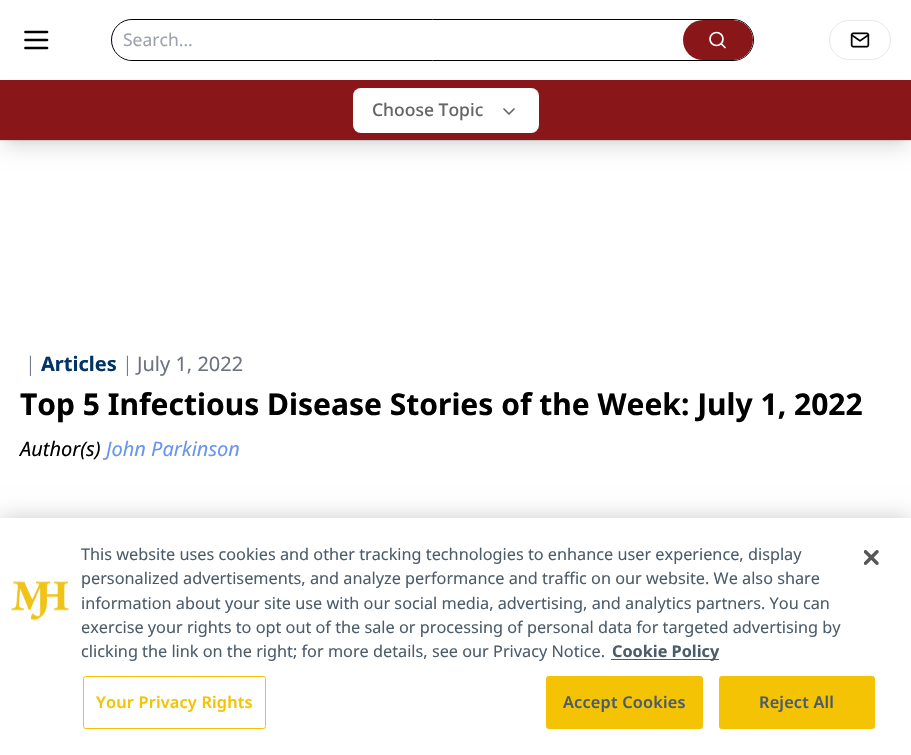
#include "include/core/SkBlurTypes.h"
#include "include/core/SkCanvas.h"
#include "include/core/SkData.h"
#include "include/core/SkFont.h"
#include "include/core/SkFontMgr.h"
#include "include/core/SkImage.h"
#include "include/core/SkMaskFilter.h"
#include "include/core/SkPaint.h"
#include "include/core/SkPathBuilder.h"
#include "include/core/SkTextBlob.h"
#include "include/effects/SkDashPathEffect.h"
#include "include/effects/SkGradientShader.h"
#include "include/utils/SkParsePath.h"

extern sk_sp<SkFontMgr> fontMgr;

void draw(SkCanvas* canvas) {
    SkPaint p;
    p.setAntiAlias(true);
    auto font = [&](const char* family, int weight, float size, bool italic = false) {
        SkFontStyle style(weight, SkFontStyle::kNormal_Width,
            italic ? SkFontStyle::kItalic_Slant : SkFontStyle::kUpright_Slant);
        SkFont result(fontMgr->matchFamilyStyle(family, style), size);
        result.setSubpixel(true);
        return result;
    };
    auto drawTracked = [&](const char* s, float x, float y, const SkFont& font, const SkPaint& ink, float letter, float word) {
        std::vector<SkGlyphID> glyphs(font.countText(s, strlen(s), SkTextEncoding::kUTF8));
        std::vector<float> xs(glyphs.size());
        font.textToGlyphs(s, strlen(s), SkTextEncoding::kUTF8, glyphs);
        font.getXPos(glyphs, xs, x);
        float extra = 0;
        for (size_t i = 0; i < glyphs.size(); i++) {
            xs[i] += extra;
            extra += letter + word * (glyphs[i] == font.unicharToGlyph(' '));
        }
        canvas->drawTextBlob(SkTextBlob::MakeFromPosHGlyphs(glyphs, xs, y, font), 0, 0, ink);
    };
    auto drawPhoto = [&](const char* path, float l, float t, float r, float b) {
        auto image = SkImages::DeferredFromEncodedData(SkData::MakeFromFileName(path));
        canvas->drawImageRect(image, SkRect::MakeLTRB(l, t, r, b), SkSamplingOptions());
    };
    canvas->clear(0xFFFFFFFF);
    p.setColor(0xFFE5E7EB);
    canvas->drawRect(SkRect::MakeLTRB(0, 140, 911, 141), p);
    p.setStyle(SkPaint::kStroke_Style);
    p.setStrokeWidth(2.7f);
    p.setStrokeCap(SkPaint::kRound_Cap);
    p.setStrokeJoin(SkPaint::kRound_Join);
    p.setColor(0xFF000000);
    canvas->drawPath(SkPathBuilder().moveTo(25.5f, 32).lineTo(47, 32).moveTo(25.5f, 40).lineTo(47, 40).moveTo(25.5f, 48).lineTo(47, 48).detach(), p);
    p.setStrokeWidth(1);
    p.setStrokeCap(SkPaint::kButt_Cap);
    p.setStrokeJoin(SkPaint::kMiter_Join);
    canvas->drawRoundRect(SkRect::MakeLTRB(111.5f, 19.5f, 753.5f, 60.5f), 20.5f, 20.5f, p);
    p.setStyle(SkPaint::kFill_Style);
    p.setColor(0xFFFFFFFF);
    canvas->drawRoundRect(SkRect::MakeLTRB(113, 20, 753, 60), 20, 20, p);
    auto font1 = font("Noto Sans", 400, 17.5f);
    p.setColor(0xFF9CA3AF);
    canvas->drawString("Search...", 123, 46, font1, p);
    p.setColor(0xFF89171A);
    canvas->drawRoundRect(SkRect::MakeLTRB(683, 20, 753, 60), 20, 20, p);
    p.setStyle(SkPaint::kStroke_Style);
    p.setStrokeWidth(1.7f);
    p.setColor(0xFFFFFFFF);
    canvas->drawCircle(716.5f, 39, 6.5f, p);
    p.setStrokeCap(SkPaint::kRound_Cap);
    p.setStrokeJoin(SkPaint::kRound_Join);
    canvas->drawPath(SkPathBuilder().moveTo(725, 47.5f).lineTo(721.5f, 44).detach(), p);
    p.setStrokeWidth(1);
    p.setStrokeCap(SkPaint::kButt_Cap);
    p.setStrokeJoin(SkPaint::kMiter_Join);
    p.setColor(0xFFE5E7EB);
    canvas->drawRoundRect(SkRect::MakeLTRB(829.5f, 20.5f, 890.5f, 59.5f), 19.5f, 19.5f, p);
    drawPhoto("media/1.png", 850, 32, 870, 48);
    p.setStyle(SkPaint::kFill_Style);
    p.setColor(0x1A000000);
    p.setMaskFilter(SkMaskFilter::MakeBlur(kNormal_SkBlurStyle, 4));
    canvas->drawRect(SkRect::MakeLTRB(5, 90, 906, 140), p);
    p.setMaskFilter(nullptr);
    p.setMaskFilter(SkMaskFilter::MakeBlur(kNormal_SkBlurStyle, 9.5f));
    canvas->drawRect(SkRect::MakeLTRB(4, 96, 908, 149), p);
    p.setMaskFilter(nullptr);
    p.setColor(0xFF89171A);
    canvas->drawRect(SkRect::MakeLTRB(0, 80, 911, 140), p);
    p.setColor(0xFFFFFFFF);
    canvas->drawRoundRect(SkRect::MakeLTRB(353, 88, 539, 133), 8, 8, p);
    auto font2 = font("Noto Sans", 500, 17.5f);
    p.setColor(0xFF666666);
    canvas->drawString("Choose Topic", 372, 116, font2, p);
    p.setStyle(SkPaint::kStroke_Style);
    p.setStrokeWidth(1.7f);
    p.setStrokeCap(SkPaint::kRound_Cap);
    p.setStrokeJoin(SkPaint::kRound_Join);
    canvas->drawPath(SkPathBuilder().moveTo(504, 109).lineTo(509, 114).lineTo(514, 109).detach(), p);
    auto font3 = font("Noto Sans", 300, 20);
    p.setStyle(SkPaint::kFill_Style);
    p.setColor(0xFF6B7280);
    canvas->drawString("|", 25, 371, font3, p);
    auto font4 = font("Noto Sans", 700, 20);
    p.setColor(0xFF003366);
    canvas->drawString("Articles", 41, 371, font4, p);
    p.setColor(0xFF6B7280);
    canvas->drawString("|", 122, 371, font3, p);
    auto font5 = font("Noto Sans", 400, 20);
    canvas->drawString("July 1, 2022", 137, 371, font5, p);
    auto font6 = font("Noto Sans", 700, 30);
    p.setColor(0xFF000000);
    canvas->drawString("Top 5 Infectious Disease Stories of the Week: July 1, 2022", 20, 415, font6, p);
    auto font7 = font("Noto Sans", 400, 20, true);
    canvas->drawString("Author(s)", 20, 456, font7, p);
    p.setColor(0xFF6A95EC);
    canvas->drawString("John Parkinson", 106, 456, font7, p);
    p.setColor(0x33000000);
    p.setMaskFilter(SkMaskFilter::MakeBlur(kNormal_SkBlurStyle, 11));
    canvas->drawRect(SkRect::MakeLTRB(0, 518, 911, 755), p);
    p.setMaskFilter(nullptr);
    p.setColor(0xFFFFFFFF);
    canvas->drawRect(SkRect::MakeLTRB(0, 518, 911, 755), p);
    drawPhoto("media/2.png", 11, 581, 69, 621);
    auto font8 = font("Noto Sans", 400, 16.25f);
    p.setColor(0xFF4C5C6B);
    {
        const struct { const char* s; float x, y; } items[] = {
            {"This website uses cookies and other tracking technologies to enhance user experience, display", 81, 560},
            {"personalized advertisements, and analyze performance and traffic on our website. We also share", 81, 584},
            {"information about your site use with our social media, advertising, and analytics partners. You can", 81, 609},
            {"exercise your rights to opt out of the sale or processing of personal data for targeted advertising by", 81, 633},
            {"clicking the link on the right; for more details, see our Privacy Notice.", 81, 657},
        };
        for (auto [s, x, y] : items) {
            canvas->drawString(s, x, y, font8, p);
        }
    }
    canvas->drawRect(SkRect::MakeLTRB(611, 659, 719, 660), p);
    auto font9 = font("Noto Sans", 700, 16.25f);
    canvas->drawString("Cookie Policy", 612, 657, font9, p);
    p.setStyle(SkPaint::kStroke_Style);
    p.setStrokeWidth(1);
    p.setStrokeCap(SkPaint::kButt_Cap);
    p.setStrokeJoin(SkPaint::kMiter_Join);
    p.setColor(0xFFF4C404);
    canvas->drawRoundRect(SkRect::MakeLTRB(83.5f, 676.5f, 265.5f, 728.5f), 2, 2, p);
    auto font10 = font("Noto Sans", 600, 16.25f);
    p.setStyle(SkPaint::kFill_Style);
    drawTracked("Your Privacy Rights", 96, 708, font10, p, 0.2f, 0);
    canvas->drawRoundRect(SkRect::MakeLTRB(546.5f, 676.5f, 702.5f, 728.5f), 2, 2, p);
    p.setStyle(SkPaint::kStroke_Style);
    canvas->drawRoundRect(SkRect::MakeLTRB(546.5f, 676.5f, 702.5f, 728.5f), 2, 2, p);
    p.setStyle(SkPaint::kFill_Style);
    p.setColor(0xFF4C5C6B);
    drawTracked("Accept Cookies", 563, 708, font10, p, 0.2f, 0);
    p.setColor(0xFFF4C404);
    canvas->drawRoundRect(SkRect::MakeLTRB(719.5f, 676.5f, 874.5f, 728.5f), 2, 2, p);
    p.setStyle(SkPaint::kStroke_Style);
    canvas->drawRoundRect(SkRect::MakeLTRB(719.5f, 676.5f, 874.5f, 728.5f), 2, 2, p);
    p.setStyle(SkPaint::kFill_Style);
    p.setColor(0xFF4C5C6B);
    drawTracked("Reject All", 759, 708, font10, p, 0.2f, 0);
    drawPhoto("media/3.png", 864, 550, 879, 565);
}
